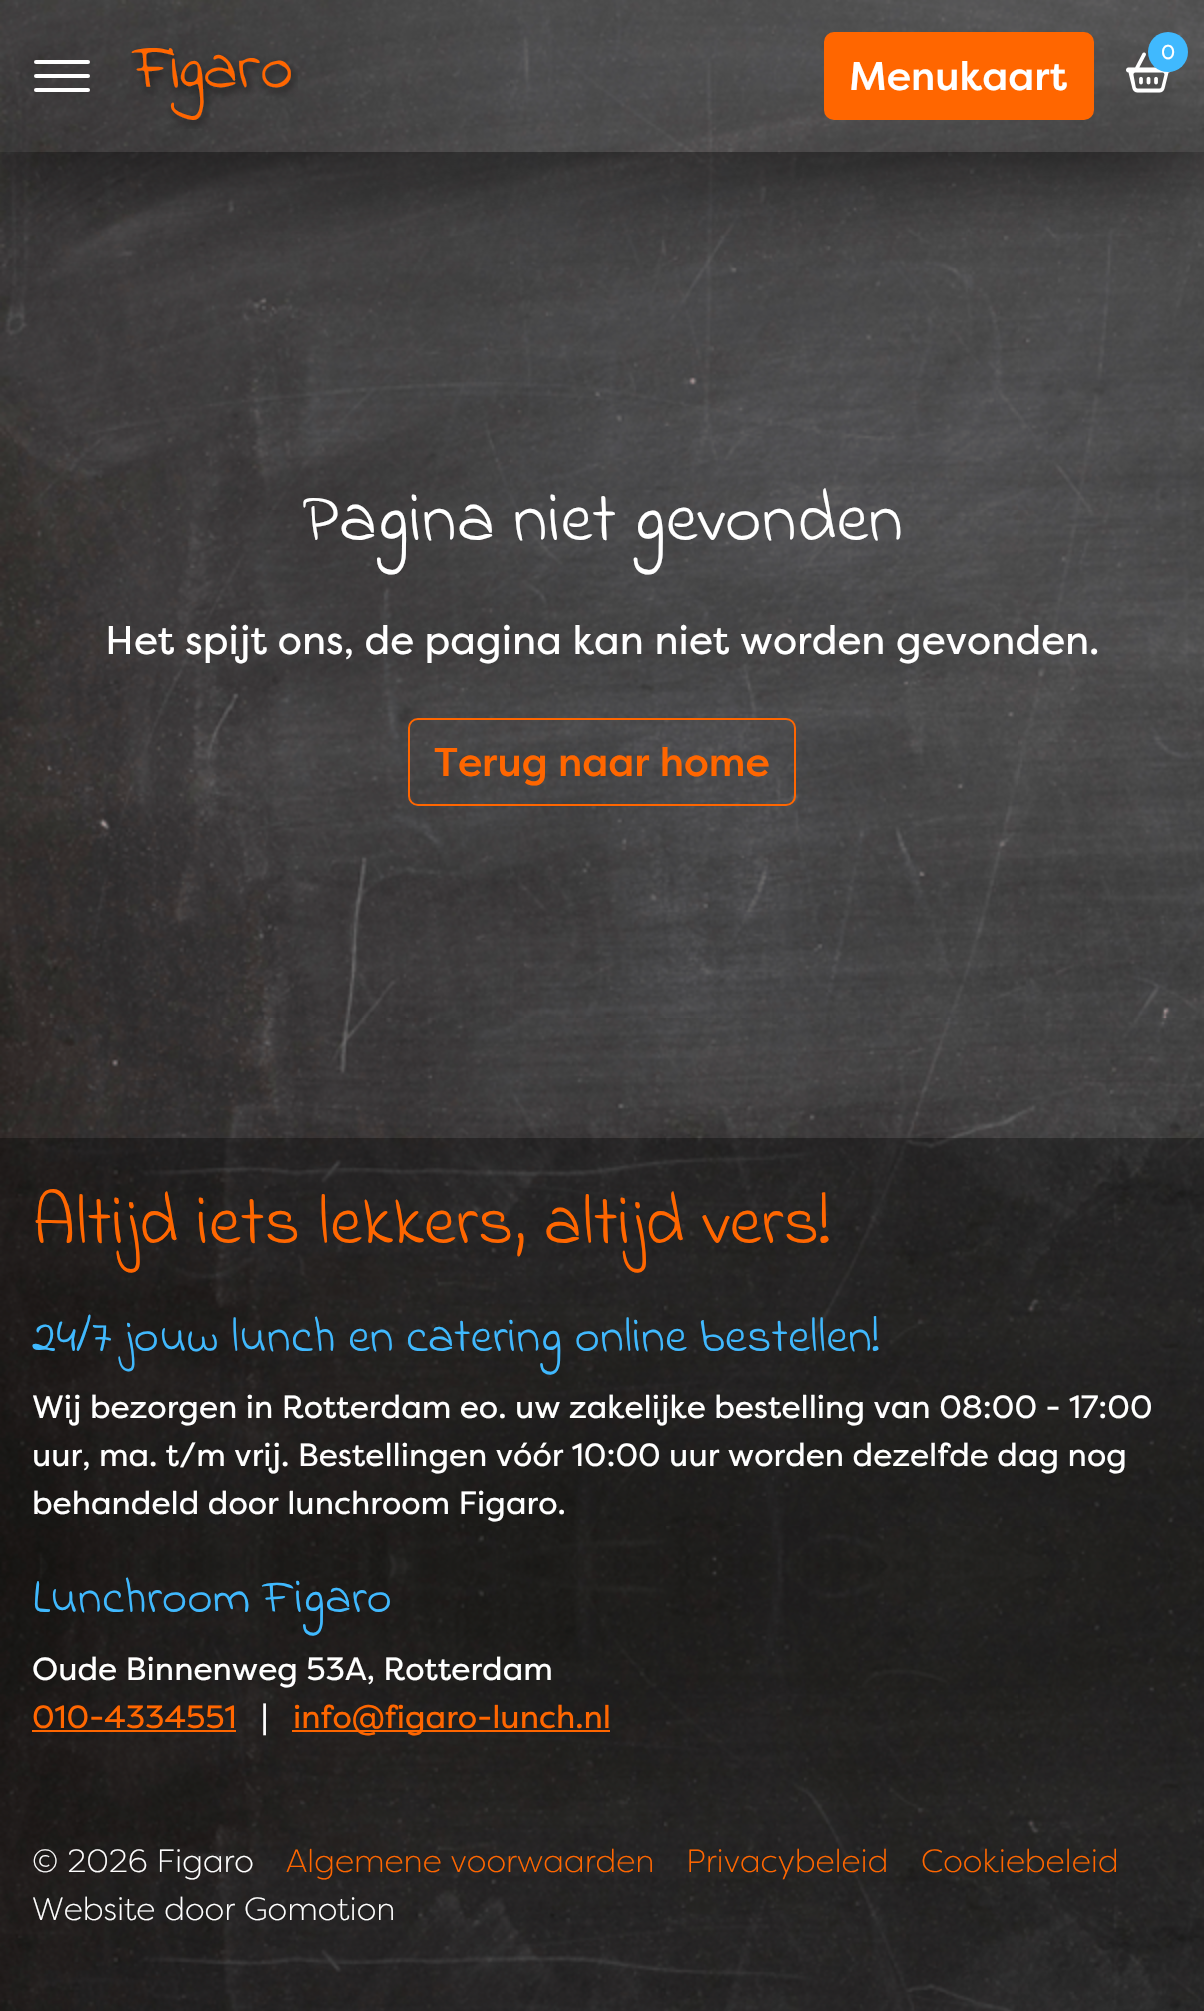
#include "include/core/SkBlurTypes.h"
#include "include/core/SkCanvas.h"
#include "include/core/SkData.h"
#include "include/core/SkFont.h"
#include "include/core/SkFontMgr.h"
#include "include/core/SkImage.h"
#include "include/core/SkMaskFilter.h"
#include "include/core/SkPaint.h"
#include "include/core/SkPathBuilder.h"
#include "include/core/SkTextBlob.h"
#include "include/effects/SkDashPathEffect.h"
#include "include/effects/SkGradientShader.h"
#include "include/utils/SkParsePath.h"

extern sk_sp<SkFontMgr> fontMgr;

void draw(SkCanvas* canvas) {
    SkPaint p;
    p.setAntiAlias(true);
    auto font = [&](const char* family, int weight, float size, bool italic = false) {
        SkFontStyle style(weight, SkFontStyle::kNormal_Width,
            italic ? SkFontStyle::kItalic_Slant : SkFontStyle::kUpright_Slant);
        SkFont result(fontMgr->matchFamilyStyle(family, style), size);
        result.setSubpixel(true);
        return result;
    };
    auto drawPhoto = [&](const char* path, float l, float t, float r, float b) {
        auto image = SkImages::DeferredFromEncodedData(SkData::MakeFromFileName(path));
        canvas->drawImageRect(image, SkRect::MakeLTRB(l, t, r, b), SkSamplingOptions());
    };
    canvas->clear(0xFFFFFFFF);
    drawPhoto("media/1.png", 0, 0, 1204, 2011);
    canvas->save();
    canvas->clipRect(SkRect::MakeLTRB(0, 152, 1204, 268));
    p.setColor(0x80000000);
    p.setMaskFilter(SkMaskFilter::MakeBlur(kNormal_SkBlurStyle, 48));
    canvas->drawRect(SkRect::MakeLTRB(0, 32, 1204, 184), p);
    p.setMaskFilter(nullptr);
    canvas->restore();
    p.setColor(0xFF5E5D5D);
    canvas->drawRect(SkRect::MakeLTRB(730, 151, 732, 152), p);
    p.setColor(0xFFFFFFFF);
    canvas->drawRoundRect(SkRect::MakeLTRB(34, 74, 90, 78), 2, 2, p);
    canvas->drawRoundRect(SkRect::MakeLTRB(34, 60, 90, 64), 2, 2, p);
    canvas->drawRoundRect(SkRect::MakeLTRB(34, 88, 90, 92), 2, 2, p);
    drawPhoto("media/2.png", 131, 48, 298, 129);
    drawPhoto("media/3.png", 1126, 52, 1171, 93);
    p.setColor(0xFF40B9FE);
    canvas->drawCircle(1168, 52, 20, p);
    auto font1 = font("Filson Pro", 400, 20);
    p.setColor(0xFFFFFFFF);
    canvas->drawString("0", 1161, 59, font1, p);
    p.setColor(0xFFFF6600);
    canvas->drawRoundRect(SkRect::MakeLTRB(825, 33, 1093, 119), 9, 9, p);
    p.setStyle(SkPaint::kStroke_Style);
    p.setStrokeWidth(2);
    canvas->drawRoundRect(SkRect::MakeLTRB(825, 33, 1093, 119), 9, 9, p);
    auto font2 = font("Filson Pro", 500, 40);
    p.setStyle(SkPaint::kFill_Style);
    p.setColor(0xFFFFFFFF);
    canvas->drawString("Menukaart", 849, 90, font2, p);
    auto font3 = font("Indie Flower", 400, 70.9f);
    canvas->drawString("Pagina niet gevonden", 302, 540, font3, p);
    auto font4 = font("Filson Pro", 400, 40);
    canvas->drawString("Het spijt ons, de pagina kan niet worden gevonden.", 105, 654, font4, p);
    p.setStyle(SkPaint::kStroke_Style);
    p.setColor(0xFFFF6600);
    canvas->drawRoundRect(SkRect::MakeLTRB(409, 719, 795, 805), 9, 9, p);
    p.setStyle(SkPaint::kFill_Style);
    canvas->drawString("Terug naar home", 434, 776, font2, p);
    p.setColor(0x59000000);
    canvas->drawRect(SkRect::MakeLTRB(0, 1138, 1204, 2011), p);
    p.setColor(0xFFFF6600);
    canvas->drawString("Altijd iets lekkers, altijd vers!", 32, 1243, font3, p);
    auto font5 = font("Indie Flower", 400, 48.8f);
    p.setColor(0xFF40B9FE);
    canvas->drawString("24/7 jouw lunch en catering online bestellen!", 32, 1351, font5, p);
    auto font6 = font("Filson Pro", 400, 32);
    p.setColor(0xFFFFFFFF);
    {
        const struct { const char* s; float x, y; } items[] = {
            {"Wij bezorgen in Rotterdam eo. uw zakelijke bestelling van 08:00 - 17:00", 32, 1418},
            {"uur, ma. t/m vrij. Bestellingen vóór 10:00 uur worden dezelfde dag nog", 32, 1466},
            {"behandeld door lunchroom Figaro.", 32, 1514},
        };
        for (auto [s, x, y] : items) {
            canvas->drawString(s, x, y, font6, p);
        }
    }
    p.setColor(0xFF40B9FE);
    canvas->drawString("Lunchroom Figaro", 32, 1612, font5, p);
    p.setColor(0xFFFFFFFF);
    canvas->drawString("Oude Binnenweg 53A, Rotterdam", 32, 1680, font6, p);
    p.setColor(0xFFFF6600);
    canvas->drawString("010-4334551", 32, 1728, font6, p);
    canvas->drawRect(SkRect::MakeLTRB(32, 1730, 236, 1732), p);
    p.setColor(0xFFFFFFFF);
    canvas->drawString("|", 261, 1728, font6, p);
    p.setColor(0xFFFF6600);
    canvas->drawRect(SkRect::MakeLTRB(292, 1730, 610, 1732), p);
    canvas->drawString("info@figaro-lunch.nl", 293, 1728, font6, p);
    auto font7 = font("Filson Pro", 300, 32);
    p.setColor(0xFFFFFFFF);
    canvas->drawString("© 2026 Figaro", 32, 1872, font7, p);
    p.setColor(0xFFFF6600);
    {
        const struct { const char* s; float x, y; } items[] = {
            {"Algemene voorwaarden", 286, 1872},
            {"Privacybeleid", 686, 1872},
            {"Cookiebeleid", 921, 1872},
        };
        for (auto [s, x, y] : items) {
            canvas->drawString(s, x, y, font7, p);
        }
    }
    p.setColor(0xFFFFFFFF);
    canvas->drawString("Website door Gomotion", 32, 1920, font7, p);
}
